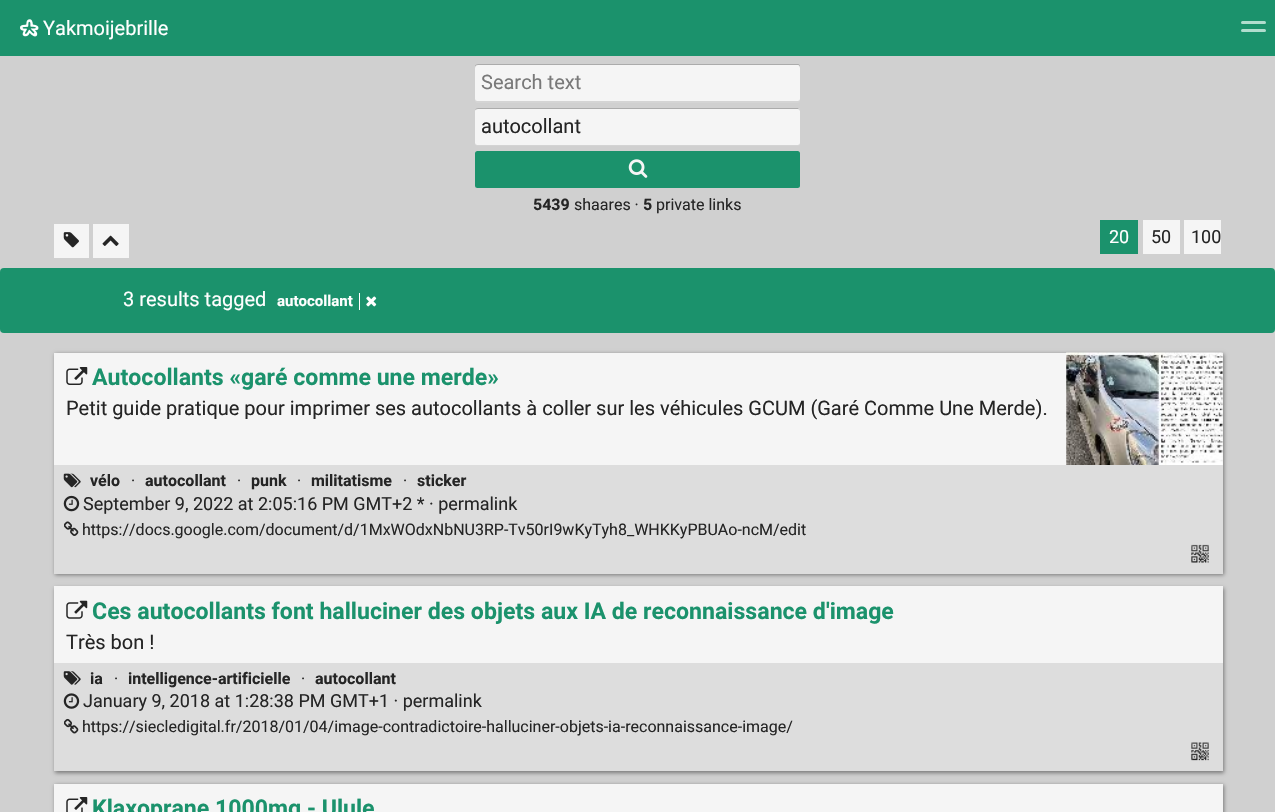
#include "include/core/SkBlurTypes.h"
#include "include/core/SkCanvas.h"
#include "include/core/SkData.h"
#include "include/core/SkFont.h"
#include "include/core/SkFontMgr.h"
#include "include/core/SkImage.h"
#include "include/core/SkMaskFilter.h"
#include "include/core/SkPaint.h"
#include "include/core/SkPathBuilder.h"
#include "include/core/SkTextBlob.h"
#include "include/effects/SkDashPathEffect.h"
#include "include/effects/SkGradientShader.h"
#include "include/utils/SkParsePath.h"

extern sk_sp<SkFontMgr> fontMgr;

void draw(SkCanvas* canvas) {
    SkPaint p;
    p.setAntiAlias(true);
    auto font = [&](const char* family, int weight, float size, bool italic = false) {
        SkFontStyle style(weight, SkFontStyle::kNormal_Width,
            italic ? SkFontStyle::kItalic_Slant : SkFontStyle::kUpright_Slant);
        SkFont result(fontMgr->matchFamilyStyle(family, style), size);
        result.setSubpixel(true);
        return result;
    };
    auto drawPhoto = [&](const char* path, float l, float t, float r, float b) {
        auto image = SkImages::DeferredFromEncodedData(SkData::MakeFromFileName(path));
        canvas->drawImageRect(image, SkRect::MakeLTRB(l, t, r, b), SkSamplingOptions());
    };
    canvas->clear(0xFFD0D0D0);
    p.setColor(0xFF1B926C);
    canvas->drawRect(SkRect::MakeLTRB(0, 0, 1275, 56), p);
    drawPhoto("media/1.png", 20, 19, 39, 37);
    auto font1 = font("Roboto", 400, 20);
    p.setColor(0xFFFFFFFF);
    canvas->drawString("Yakmoijebrille", 43, 35, font1, p);
    p.setColor(0xFFB0DDCE);
    canvas->drawRoundRect(SkRect::MakeLTRB(1241, 21, 1266, 24), 1.5f, 1.5f, p);
    canvas->drawRoundRect(SkRect::MakeLTRB(1241, 29, 1266, 32), 1.5f, 1.5f, p);
    p.setColor(0xFFD4D4D4);
    canvas->drawPath(SkPathBuilder().moveTo(475, 99).cubicTo(475, 101, 475, 103, 478, 103).lineTo(798, 103).cubicTo(800, 103, 800, 101, 800, 99).cubicTo(800, 100, 799, 101, 798, 101).lineTo(478, 101).cubicTo(476, 101, 475, 100, 475, 99).close().detach(), p);
    p.setColor(0xFFF5F5F5);
    canvas->drawRoundRect(SkRect::MakeLTRB(475, 64, 800, 101), 2.5f, 2.5f, p);
    p.setColor(0x4D000000);
    canvas->drawPath(SkPathBuilder().moveTo(478, 65).lineTo(798, 65).cubicTo(799, 65, 800, 66, 800, 68).lineTo(800, 66).cubicTo(800, 65, 799, 64, 798, 64).lineTo(478, 64).cubicTo(476, 64, 475, 65, 475, 66).lineTo(475, 68).cubicTo(475, 66, 476, 65, 478, 65).close().detach(), p);
    p.setColor(0xFF797979);
    canvas->drawString("Search text", 481, 89, font1, p);
    p.setColor(0xFFD4D4D4);
    canvas->drawPath(SkPathBuilder().moveTo(475, 142).cubicTo(475, 144, 475, 146, 478, 146).lineTo(798, 146).lineTo(800, 145).lineTo(800, 142).cubicTo(800, 144, 799, 145, 798, 145).lineTo(478, 145).cubicTo(476, 145, 475, 144, 475, 142).close().detach(), p);
    p.setColor(0xFFF5F5F5);
    canvas->drawRoundRect(SkRect::MakeLTRB(475, 108, 800, 145), 2.5f, 2.5f, p);
    p.setColor(0x4D000000);
    canvas->drawPath(SkPathBuilder().moveTo(478, 109).lineTo(798, 109).cubicTo(799, 109, 800, 110, 800, 111).lineTo(800, 110).lineTo(798, 108).lineTo(478, 108).cubicTo(476, 108, 475, 109, 475, 111).cubicTo(475, 110, 476, 109, 478, 109).close().detach(), p);
    p.setColor(0xFF252525);
    canvas->drawString("autocollant", 481, 133, font1, p);
    p.setColor(0xFF1B926C);
    canvas->drawRoundRect(SkRect::MakeLTRB(475, 151, 800, 188), 2.5f, 2.5f, p);
    drawPhoto("media/2.png", 628, 159, 648, 178);
    auto font2 = font("Roboto", 700, 16);
    p.setColor(0xFF252525);
    canvas->drawString("5439", 533, 210, font2, p);
    auto font3 = font("Roboto", 400, 16);
    canvas->drawString("shaares ·", 574, 210, font3, p);
    canvas->drawString("5", 643, 210, font2, p);
    canvas->drawString("private links", 656, 210, font3, p);
    p.setColor(0xFFF5F5F5);
    canvas->drawRect(SkRect::MakeLTRB(54, 224, 89, 258), p);
    drawPhoto("media/3.png", 63, 232, 79, 248);
    canvas->drawRect(SkRect::MakeLTRB(93, 224, 129, 258), p);
    drawPhoto("media/4.png", 102, 235, 119, 246);
    p.setColor(0xFF1B926C);
    canvas->drawRect(SkRect::MakeLTRB(1100, 220, 1138, 254), p);
    auto font4 = font("Roboto", 400, 18);
    p.setColor(0xFFFFFFFF);
    canvas->drawString("20", 1109, 243, font4, p);
    p.setColor(0xFFF5F5F5);
    canvas->drawRect(SkRect::MakeLTRB(1143, 220, 1180, 254), p);
    p.setColor(0xFF252525);
    canvas->drawString("50", 1151, 243, font4, p);
    p.setColor(0xFFF5F5F5);
    canvas->drawRect(SkRect::MakeLTRB(1184, 220, 1221, 254), p);
    p.setColor(0xFF252525);
    canvas->drawString("100", 1191, 243, font4, p);
    p.setColor(0xFF1B926C);
    canvas->drawRoundRect(SkRect::MakeLTRB(0, 268, 1275, 333), 4, 4, p);
    p.setColor(0xFFFFFFFF);
    canvas->drawString("3 results tagged", 123, 306, font1, p);
    auto font5 = font("Roboto", 700, 15);
    canvas->drawString("autocollant", 277, 306, font5, p);
    canvas->drawRect(SkRect::MakeLTRB(359, 293, 360, 310), p);
    drawPhoto("media/5.png", 366, 296, 377, 307);
    p.setColor(0xFF797979);
    p.setMaskFilter(SkMaskFilter::MakeBlur(kNormal_SkBlurStyle, 2));
    canvas->drawRect(SkRect::MakeLTRB(55, 354, 1224, 575), p);
    p.setMaskFilter(nullptr);
    p.setColor(0xFFF5F5F5);
    canvas->drawRect(SkRect::MakeLTRB(54, 353, 1223, 465), p);
    drawPhoto("media/6.png", 66, 367, 88, 385);
    auto font6 = font("Roboto", 700, 23.1f);
    p.setColor(0xFF1B926C);
    canvas->drawString("Autocollants «garé comme une merde»", 92, 385, font6, p);
    drawPhoto("media/7.png", 1066, 352, 1223, 465);
    p.setColor(0xFF252525);
    canvas->drawString("Petit guide pratique pour imprimer ses autocollants à coller sur les véhicules GCUM (Garé Comme Une Merde).", 66, 415, font1, p);
    p.setColor(0xFFDDDDDD);
    canvas->drawRect(SkRect::MakeLTRB(54, 465, 1223, 574), p);
    drawPhoto("media/8.png", 63, 473, 81, 488);
    p.setColor(0xFF252525);
    canvas->drawString("vélo", 90, 486, font2, p);
    canvas->drawString("·", 131, 486, font3, p);
    canvas->drawString("autocollant", 145, 486, font2, p);
    canvas->drawString("·", 237, 486, font3, p);
    canvas->drawString("punk", 251, 486, font2, p);
    canvas->drawString("·", 297, 486, font3, p);
    canvas->drawString("militatisme", 311, 486, font2, p);
    canvas->drawString("·", 403, 486, font3, p);
    canvas->drawString("sticker", 417, 486, font2, p);
    drawPhoto("media/9.png", 63, 495, 80, 512);
    canvas->drawString("September 9, 2022 at 2:05:16 PM GMT+2 * · permalink", 83, 510, font4, p);
    drawPhoto("media/10.png", 64, 521, 79, 536);
    canvas->drawString("https://docs.google.com/document/d/1MxWOdxNbNU3RP-Tv50rI9wKyTyh8_WHKKyPBUAo-ncM/edit", 82, 535, font3, p);
    drawPhoto("media/11.png", 1191, 544, 1209, 563);
    p.setColor(0xFF797979);
    p.setMaskFilter(SkMaskFilter::MakeBlur(kNormal_SkBlurStyle, 2));
    canvas->drawRect(SkRect::MakeLTRB(55, 588, 1224, 773), p);
    p.setMaskFilter(nullptr);
    p.setColor(0xFFF5F5F5);
    canvas->drawRect(SkRect::MakeLTRB(54, 586, 1223, 663), p);
    drawPhoto("media/12.png", 66, 600, 88, 619);
    p.setColor(0xFF1B926C);
    canvas->drawString("Ces autocollants font halluciner des objets aux IA de reconnaissance d'image", 92, 619, font6, p);
    p.setColor(0xFF252525);
    canvas->drawString("Très bon !", 66, 649, font1, p);
    p.setColor(0xFFDDDDDD);
    canvas->drawRect(SkRect::MakeLTRB(54, 663, 1223, 771), p);
    drawPhoto("media/13.png", 63, 671, 81, 685);
    p.setColor(0xFF252525);
    canvas->drawString("ia", 90, 684, font2, p);
    canvas->drawString("·", 114, 684, font3, p);
    canvas->drawString("intelligence-artificielle", 128, 684, font2, p);
    canvas->drawString("·", 301, 684, font3, p);
    canvas->drawString("autocollant", 315, 684, font2, p);
    drawPhoto("media/14.png", 63, 693, 80, 709);
    canvas->drawString("January 9, 2018 at 1:28:38 PM GMT+1 · permalink", 83, 707, font4, p);
    drawPhoto("media/15.png", 64, 718, 79, 734);
    canvas->drawString("https://siecledigital.fr/2018/01/04/image-contradictoire-halluciner-objets-ia-reconnaissance-image/", 82, 732, font3, p);
    drawPhoto("media/16.png", 1191, 742, 1209, 761);
    p.setColor(0xFF797979);
    p.setMaskFilter(SkMaskFilter::MakeBlur(kNormal_SkBlurStyle, 2));
    canvas->drawRect(SkRect::MakeLTRB(55, 785, 1224, 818), p);
    p.setMaskFilter(nullptr);
    p.setColor(0xFFF5F5F5);
    canvas->drawRect(SkRect::MakeLTRB(54, 784, 1223, 812), p);
    drawPhoto("media/17.png", 66, 797, 88, 812);
    p.setColor(0xFF1B926C);
    canvas->drawString("Klaxoprane 1000mg - Ulule", 92, 816, font6, p);
}
